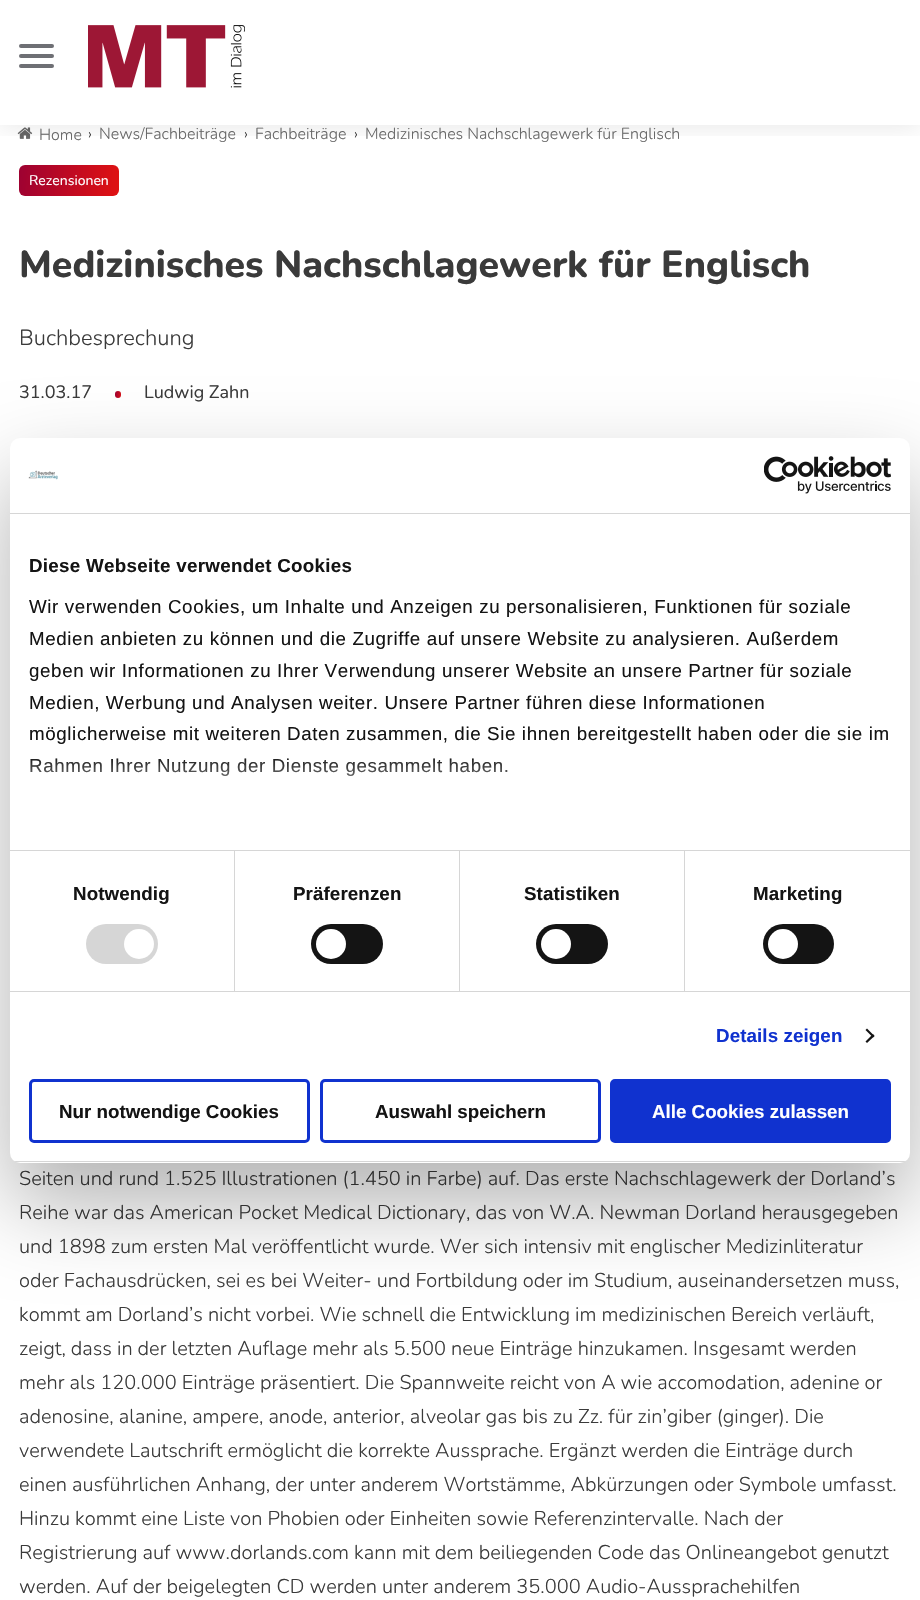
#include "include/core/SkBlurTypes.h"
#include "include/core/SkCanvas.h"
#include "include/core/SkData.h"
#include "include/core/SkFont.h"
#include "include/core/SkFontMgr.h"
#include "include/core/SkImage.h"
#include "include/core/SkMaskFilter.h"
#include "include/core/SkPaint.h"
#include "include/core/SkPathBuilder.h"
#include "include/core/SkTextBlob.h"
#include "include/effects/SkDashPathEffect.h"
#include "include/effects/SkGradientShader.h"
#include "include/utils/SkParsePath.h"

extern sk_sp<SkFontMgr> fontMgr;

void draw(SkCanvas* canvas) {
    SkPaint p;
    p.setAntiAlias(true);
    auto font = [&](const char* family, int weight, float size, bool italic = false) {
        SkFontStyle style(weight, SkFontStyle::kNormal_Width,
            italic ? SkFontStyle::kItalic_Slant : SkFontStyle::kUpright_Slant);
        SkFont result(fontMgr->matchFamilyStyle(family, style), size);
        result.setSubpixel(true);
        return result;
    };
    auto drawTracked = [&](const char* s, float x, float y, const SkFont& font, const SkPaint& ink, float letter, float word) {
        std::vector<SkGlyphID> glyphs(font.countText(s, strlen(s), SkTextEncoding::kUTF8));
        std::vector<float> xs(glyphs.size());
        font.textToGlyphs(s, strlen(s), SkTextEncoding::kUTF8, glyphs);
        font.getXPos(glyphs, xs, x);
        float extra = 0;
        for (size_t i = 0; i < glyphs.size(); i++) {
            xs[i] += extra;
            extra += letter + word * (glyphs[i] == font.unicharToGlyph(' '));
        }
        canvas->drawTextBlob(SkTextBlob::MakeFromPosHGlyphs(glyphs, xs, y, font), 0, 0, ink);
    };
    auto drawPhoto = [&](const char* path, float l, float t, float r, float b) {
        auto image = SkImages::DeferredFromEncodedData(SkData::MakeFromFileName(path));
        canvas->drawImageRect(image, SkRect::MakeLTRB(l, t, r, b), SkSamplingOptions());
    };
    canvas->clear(0xFFFFFFFF);
    drawPhoto("media/2.png", 17, 127, 33, 139);
    canvas->save();
    canvas->clipRect(SkRect::MakeLTRB(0, 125, 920, 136));
    p.setColor(0x1A000000);
    p.setMaskFilter(SkMaskFilter::MakeBlur(kNormal_SkBlurStyle, 12.5f));
    canvas->drawRect(SkRect::MakeLTRB(0, 0, 920, 125), p);
    p.setMaskFilter(nullptr);
    canvas->restore();
    p.setColor(0xFF6E6F74);
    canvas->drawRoundRect(SkRect::MakeLTRB(19, 44, 54, 48), 2, 2, p);
    canvas->drawRoundRect(SkRect::MakeLTRB(19, 54, 54, 58), 2, 2, p);
    canvas->drawRoundRect(SkRect::MakeLTRB(19, 64, 54, 68), 2, 2, p);
    drawPhoto("media/1.png", 88, 25, 245, 88);
    auto font1 = font("Nunito", 300, 16);
    p.setColor(0xFF666666);
    canvas->drawString("Home", 39, 140, font1, p);
    p.setColor(0xFF3A3A3A);
    canvas->drawString("›", 88, 139, font1, p);
    p.setColor(0xFF666666);
    canvas->drawString("News/Fachbeiträge", 99, 139, font1, p);
    p.setColor(0xFF3A3A3A);
    canvas->drawString("›", 244, 139, font1, p);
    p.setColor(0xFF666666);
    canvas->drawString("Fachbeiträge", 255, 139, font1, p);
    p.setColor(0xFF3A3A3A);
    canvas->drawString("›", 354, 139, font1, p);
    p.setColor(0xFF666666);
    canvas->drawString("Medizinisches Nachschlagewerk für Englisch", 365, 139, font1, p);
    {
        const SkColor colors[] = {0xFF9D0132, 0xFFE01212};
        const float stops[] = {0, 1};
        const SkPoint ends[] = {{18, 174}, {120, 187}};
        p.setShader(SkGradientShader::MakeLinear(ends, colors, stops, 2, SkTileMode::kClamp));
        p.setAlpha(255);
    }
    canvas->drawRoundRect(SkRect::MakeLTRB(19, 165, 119, 196), 6, 6, p);
    auto font2 = font("Nunito", 400, 14);
    p.setShader(nullptr);
    p.setColor(0xFFFFFFFF);
    canvas->drawString("Rezensionen", 29, 185, font2, p);
    auto font3 = font("Nunito", 800, 37.5f);
    p.setColor(0xFF3A3A3A);
    canvas->drawString("Medizinisches Nachschlagewerk für Englisch", 19, 277, font3, p);
    auto font4 = font("Nunito", 300, 22);
    canvas->drawString("Buchbesprechung", 19, 345, font4, p);
    auto font5 = font("Nunito", 400, 18);
    canvas->drawString("31.03.17", 19, 398, font5, p);
    {
        const SkColor colors[] = {0xFF9D0132, 0xFFE01212};
        const float stops[] = {0, 1};
        const SkPoint ends[] = {{115, 394}, {122, 395}};
        p.setShader(SkGradientShader::MakeLinear(ends, colors, stops, 2, SkTileMode::kClamp));
        p.setAlpha(255);
    }
    canvas->drawRoundRect(SkRect::MakeLTRB(115, 391, 121, 398), 3, 3, p);
    p.setShader(nullptr);
    p.setColor(0xFF3A3A3A);
    canvas->drawString("Ludwig Zahn", 144, 398, font5, p);
    auto font6 = font("Nunito", 300, 20);
    {
        const struct { const char* s; float x, y; } items[] = {
            {"Seiten und rund 1.525 Illustrationen (1.450 in Farbe) auf. Das erste Nachschlagewerk der Dorland’s", 19, 1185},
            {"Reihe war das American Pocket Medical Dictionary, das von W.A. Newman Dorland herausgegeben", 19, 1219},
            {"und 1898 zum ersten Mal veröffentlicht wurde. Wer sich intensiv mit englischer Medizinliteratur", 19, 1253},
            {"oder Fachausdrücken, sei es bei Weiter- und Fortbildung oder im Studium, auseinandersetzen muss,", 19, 1287},
            {"kommt am Dorland’s nicht vorbei. Wie schnell die Entwicklung im medizinischen Bereich verläuft,", 19, 1321},
            {"zeigt, dass in der letzten Auflage mehr als 5.500 neue Einträge hinzukamen. Insgesamt werden", 19, 1355},
            {"mehr als 120.000 Einträge präsentiert. Die Spannweite reicht von A wie accomodation, adenine or", 19, 1389},
            {"adenosine, alanine, ampere, anode, anterior, alveolar gas bis zu Zz. für zin’giber (ginger). Die", 19, 1423},
            {"verwendete Lautschrift ermöglicht die korrekte Aussprache. Ergänzt werden die Einträge durch", 19, 1457},
            {"einen ausführlichen Anhang, der unter anderem Wortstämme, Abkürzungen oder Symbole umfasst.", 19, 1491},
            {"Hinzu kommt eine Liste von Phobien oder Einheiten sowie Referenzintervalle. Nach der", 19, 1525},
            {"Registrierung auf www.dorlands.com kann mit dem beiliegenden Code das Onlineangebot genutzt", 19, 1559},
            {"werden. Auf der beigelegten CD werden unter anderem 35.000 Audio-Aussprachehilfen", 19, 1593},
        };
        for (auto [s, x, y] : items) {
            canvas->drawString(s, x, y, font6, p);
        }
    }
    p.setColor(0x4D000000);
    p.setMaskFilter(SkMaskFilter::MakeBlur(kNormal_SkBlurStyle, 42.5f));
    canvas->drawRoundRect(SkRect::MakeLTRB(10, 478, 910, 1203), 10, 10, p);
    p.setMaskFilter(nullptr);
    p.setColor(0xFFFFFFFF);
    canvas->drawRoundRect(SkRect::MakeLTRB(10, 438, 910, 1163), 10, 10, p);
    p.setColor(0xFFD6D6D6);
    canvas->drawRect(SkRect::MakeLTRB(10, 513, 910, 514), p);
    drawPhoto("media/3.png", 28, 470, 58, 480);
    drawPhoto("media/4.png", 764, 456, 891, 494);
    canvas->drawRect(SkRect::MakeLTRB(10, 850, 910, 851), p);
    auto font7 = font("Liberation Sans", 700, 18.75f);
    p.setColor(0xFF141414);
    drawTracked("Diese Webseite verwendet Cookies", 29, 572, font7, p, 0.3f, 0);
    auto font8 = font("Liberation Sans", 400, 18.75f);
    {
        const struct { const char* s; float x, y; } items[] = {
            {"Wir verwenden Cookies, um Inhalte und Anzeigen zu personalisieren, Funktionen für soziale", 29, 613},
            {"Medien anbieten zu können und die Zugriffe auf unsere Website zu analysieren. Außerdem", 29, 645},
            {"geben wir Informationen zu Ihrer Verwendung unserer Website an unsere Partner für soziale", 29, 677},
            {"Medien, Werbung und Analysen weiter. Unsere Partner führen diese Informationen", 29, 709},
            {"möglicherweise mit weiteren Daten zusammen, die Sie ihnen bereitgestellt haben oder die sie im", 29, 740},
            {"Rahmen Ihrer Nutzung der Dienste gesammelt haben.", 29, 772},
        };
        for (auto [s, x, y] : items) {
            drawTracked(s, x, y, font8, p, 0.62f, 0);
        }
    }
    {
        const SkColor colors[] = {0xFFFFFFFF, 0xCCFFFFFF, 0x00FFFFFF};
        const float stops[] = {0, 0.5f, 1};
        const SkPoint ends[] = {{452, 850}, {452, 756}};
        p.setShader(SkGradientShader::MakeLinear(ends, colors, stops, 3, SkTileMode::kClamp));
        p.setAlpha(255);
    }
    canvas->drawRect(SkRect::MakeLTRB(30, 758, 508, 776), p);
    p.setShader(nullptr);
    p.setColor(0xFFD6D6D6);
    canvas->drawRect(SkRect::MakeLTRB(10, 991, 910, 992), p);
    canvas->drawRect(SkRect::MakeLTRB(234, 851, 235, 991), p);
    p.setColor(0xFF141414);
    drawTracked("Notwendig", 73, 900, font7, p, 0.1f, 0);
    p.setColor(0xFFD6D6D6);
    canvas->drawRoundRect(SkRect::MakeLTRB(86, 924, 158, 964), 20, 20, p);
    p.setColor(0xFFFFFFFF);
    canvas->drawCircle(139, 944, 15, p);
    p.setColor(0xFFD6D6D6);
    canvas->drawRect(SkRect::MakeLTRB(459, 851, 460, 991), p);
    p.setColor(0xFF141414);
    drawTracked("Präferenzen", 293, 900, font7, p, 0.1f, 0);
    canvas->drawRoundRect(SkRect::MakeLTRB(311, 924, 383, 964), 20, 20, p);
    p.setColor(0xFFFFFFFF);
    canvas->drawCircle(331, 944, 15, p);
    p.setColor(0xFFD6D6D6);
    canvas->drawRect(SkRect::MakeLTRB(684, 851, 685, 991), p);
    p.setColor(0xFF141414);
    drawTracked("Statistiken", 524, 900, font7, p, 0.1f, 0);
    canvas->drawRoundRect(SkRect::MakeLTRB(536, 924, 608, 964), 20, 20, p);
    p.setColor(0xFFFFFFFF);
    canvas->drawCircle(556, 944, 15, p);
    p.setColor(0xFF141414);
    drawTracked("Marketing", 753, 900, font7, p, 0.1f, 0);
    canvas->drawRoundRect(SkRect::MakeLTRB(763, 924, 834, 964), 20, 20, p);
    p.setColor(0xFFFFFFFF);
    canvas->drawCircle(783, 944, 15, p);
    p.setColor(0xFF1032CF);
    drawTracked("Details zeigen", 716, 1042, font7, p, 0.1f, 0);
    p.setColor(0xFF141414);
    canvas->drawPath(SkPathBuilder().moveTo(867, 1028.5f).lineTo(874.5f, 1036).lineTo(873, 1037.5f).lineTo(865.5f, 1030).close().detach(), p);
    canvas->drawPath(SkPathBuilder().moveTo(873, 1034).lineTo(874.5f, 1036).lineTo(867, 1043).lineTo(865.5f, 1041.5f).close().detach(), p);
    canvas->save();
    canvas->clipPath(SkPathBuilder().moveTo(20, 438).lineTo(900, 438).cubicTo(905.5f, 438, 910, 442.5f, 910, 448).lineTo(910, 1153).cubicTo(910, 1158.5f, 905.5f, 1163, 900, 1163).lineTo(20, 1163).cubicTo(14.5f, 1163, 10, 1158.5f, 10, 1153).lineTo(10, 448).cubicTo(10, 442.5f, 14.5f, 438, 20, 438).close().detach(), true);
    p.setColor(0xFFD6D6D6);
    canvas->drawRect(SkRect::MakeLTRB(10, 1161, 910, 1162), p);
    canvas->restore();
    p.setStyle(SkPaint::kStroke_Style);
    p.setStrokeWidth(3);
    p.setColor(0xFF1032CF);
    canvas->drawRoundRect(SkRect::MakeLTRB(30.5f, 1080.5f, 308.5f, 1141.5f), 3.5f, 3.5f, p);
    p.setStyle(SkPaint::kFill_Style);
    p.setColor(0xFF141414);
    canvas->drawString("Nur notwendige Cookies", 59, 1118, font7, p);
    p.setStyle(SkPaint::kStroke_Style);
    p.setColor(0xFF1032CF);
    canvas->drawRoundRect(SkRect::MakeLTRB(321.5f, 1080.5f, 599.5f, 1141.5f), 3.5f, 3.5f, p);
    p.setStyle(SkPaint::kFill_Style);
    p.setColor(0xFF141414);
    canvas->drawString("Auswahl speichern", 375, 1118, font7, p);
    p.setColor(0xFF1032CF);
    canvas->drawRoundRect(SkRect::MakeLTRB(611.5f, 1080.5f, 889.5f, 1141.5f), 3.5f, 3.5f, p);
    p.setStyle(SkPaint::kStroke_Style);
    canvas->drawRoundRect(SkRect::MakeLTRB(611.5f, 1080.5f, 889.5f, 1141.5f), 3.5f, 3.5f, p);
    p.setStyle(SkPaint::kFill_Style);
    p.setColor(0xFFFFFFFF);
    canvas->drawString("Alle Cookies zulassen", 652, 1118, font7, p);
}
